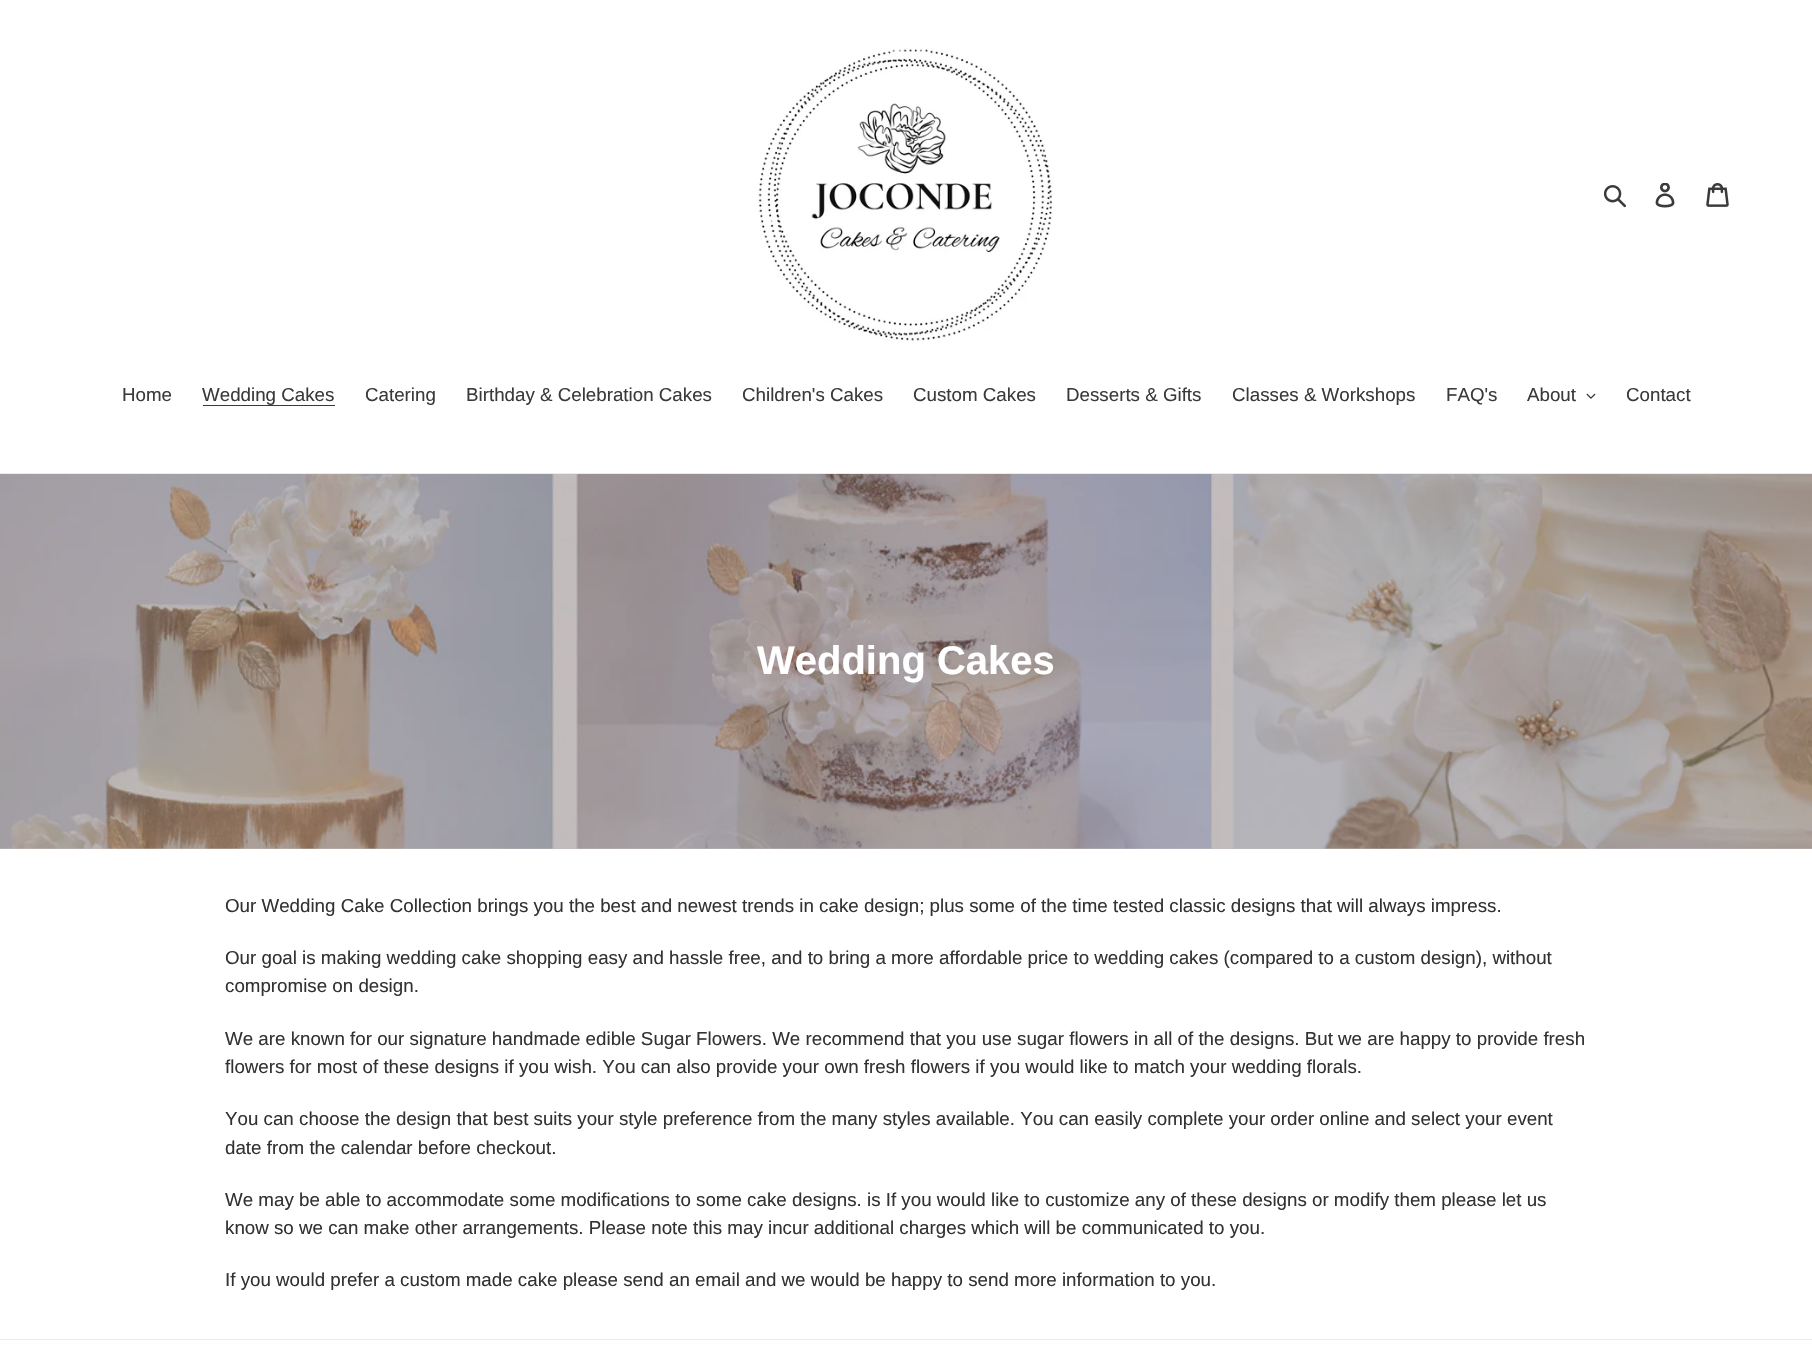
#include "include/core/SkBlurTypes.h"
#include "include/core/SkCanvas.h"
#include "include/core/SkData.h"
#include "include/core/SkFont.h"
#include "include/core/SkFontMgr.h"
#include "include/core/SkImage.h"
#include "include/core/SkMaskFilter.h"
#include "include/core/SkPaint.h"
#include "include/core/SkPathBuilder.h"
#include "include/core/SkTextBlob.h"
#include "include/effects/SkDashPathEffect.h"
#include "include/effects/SkGradientShader.h"
#include "include/utils/SkParsePath.h"

extern sk_sp<SkFontMgr> fontMgr;

void draw(SkCanvas* canvas) {
    SkPaint p;
    p.setAntiAlias(true);
    auto font = [&](const char* family, int weight, float size, bool italic = false) {
        SkFontStyle style(weight, SkFontStyle::kNormal_Width,
            italic ? SkFontStyle::kItalic_Slant : SkFontStyle::kUpright_Slant);
        SkFont result(fontMgr->matchFamilyStyle(family, style), size);
        result.setSubpixel(true);
        return result;
    };
    auto drawPhoto = [&](const char* path, float l, float t, float r, float b) {
        auto image = SkImages::DeferredFromEncodedData(SkData::MakeFromFileName(path));
        canvas->drawImageRect(image, SkRect::MakeLTRB(l, t, r, b), SkSamplingOptions());
    };
    canvas->clear(0xFFFFFFFF);
    p.setColor(0xFFC3BCBC);
    canvas->drawRect(SkRect::MakeLTRB(0, 848, 1812, 849), p);
    drawPhoto("media/1.png", 757, 48, 1053, 342);
    drawPhoto("media/2.png", 1603, 185, 1626, 208);
    drawPhoto("media/3.png", 1655, 183, 1675, 208);
    drawPhoto("media/4.png", 1706, 183, 1729, 207);
    p.setColor(0xFFEBEBEB);
    canvas->drawRect(SkRect::MakeLTRB(0, 473, 1812, 474), p);
    auto font1 = font("Liberation Sans", 400, 18.75f);
    p.setColor(0xFF3A3A3A);
    canvas->drawString("Home", 122, 401, font1, p);
    canvas->drawString("Wedding Cakes", 202, 401, font1, p);
    canvas->drawRect(SkRect::MakeLTRB(203, 405, 335, 406), p);
    {
        const struct { const char* s; float x, y; } items[] = {
            {"Catering", 365, 401},
            {"Birthday & Celebration Cakes", 466, 401},
            {"Children's Cakes", 742, 401},
            {"Custom Cakes", 913, 401},
            {"Desserts & Gifts", 1066, 401},
            {"Classes & Workshops", 1232, 401},
            {"FAQ's", 1446, 401},
            {"About", 1527, 401},
        };
        for (auto [s, x, y] : items) {
            canvas->drawString(s, x, y, font1, p);
        }
    }
    drawPhoto("media/5.png", 1586, 393, 1596, 399);
    canvas->drawString("Contact", 1626, 401, font1, p);
    drawPhoto("media/6.png", 0, 474, 1812, 849);
    auto font2 = font("Liberation Sans", 700, 40);
    p.setColor(0xFFFFFFFF);
    canvas->drawString("Wedding Cakes", 757, 674, font2, p);
    p.setColor(0xFF333232);
    {
        const struct { const char* s; float x, y; } items[] = {
            {"Our Wedding Cake Collection brings you the best and newest trends in cake design; plus some of the time tested classic designs that will always impress.", 225, 912},
            {"Our goal is making wedding cake shopping easy and hassle free, and to bring a more affordable price to wedding cakes (compared to a custom design), without", 225, 964},
            {"compromise on design.", 225, 992},
            {"We are known for our signature handmade edible Sugar Flowers. We recommend that you use sugar flowers in all of the designs. But we are happy to provide fresh", 225, 1045},
            {"flowers for most of these designs if you wish. You can also provide your own fresh flowers if you would like to match your wedding florals.", 225, 1073},
            {"You can choose the design that best suits your style preference from the many styles available. You can easily complete your order online and select your event", 225, 1125},
            {"date from the calendar before checkout.", 225, 1154},
            {"We may be able to accommodate some modifications to some cake designs. is If you would like to customize any of these designs or modify them please let us", 225, 1206},
            {"know so we can make other arrangements. Please note this may incur additional charges which will be communicated to you.", 225, 1234},
            {"If you would prefer a custom made cake please send an email and we would be happy to send more information to you.", 225, 1286},
        };
        for (auto [s, x, y] : items) {
            canvas->drawString(s, x, y, font1, p);
        }
    }
    p.setColor(0xFFEBEBEB);
    canvas->drawRect(SkRect::MakeLTRB(0, 1339, 1812, 1340), p);
}
